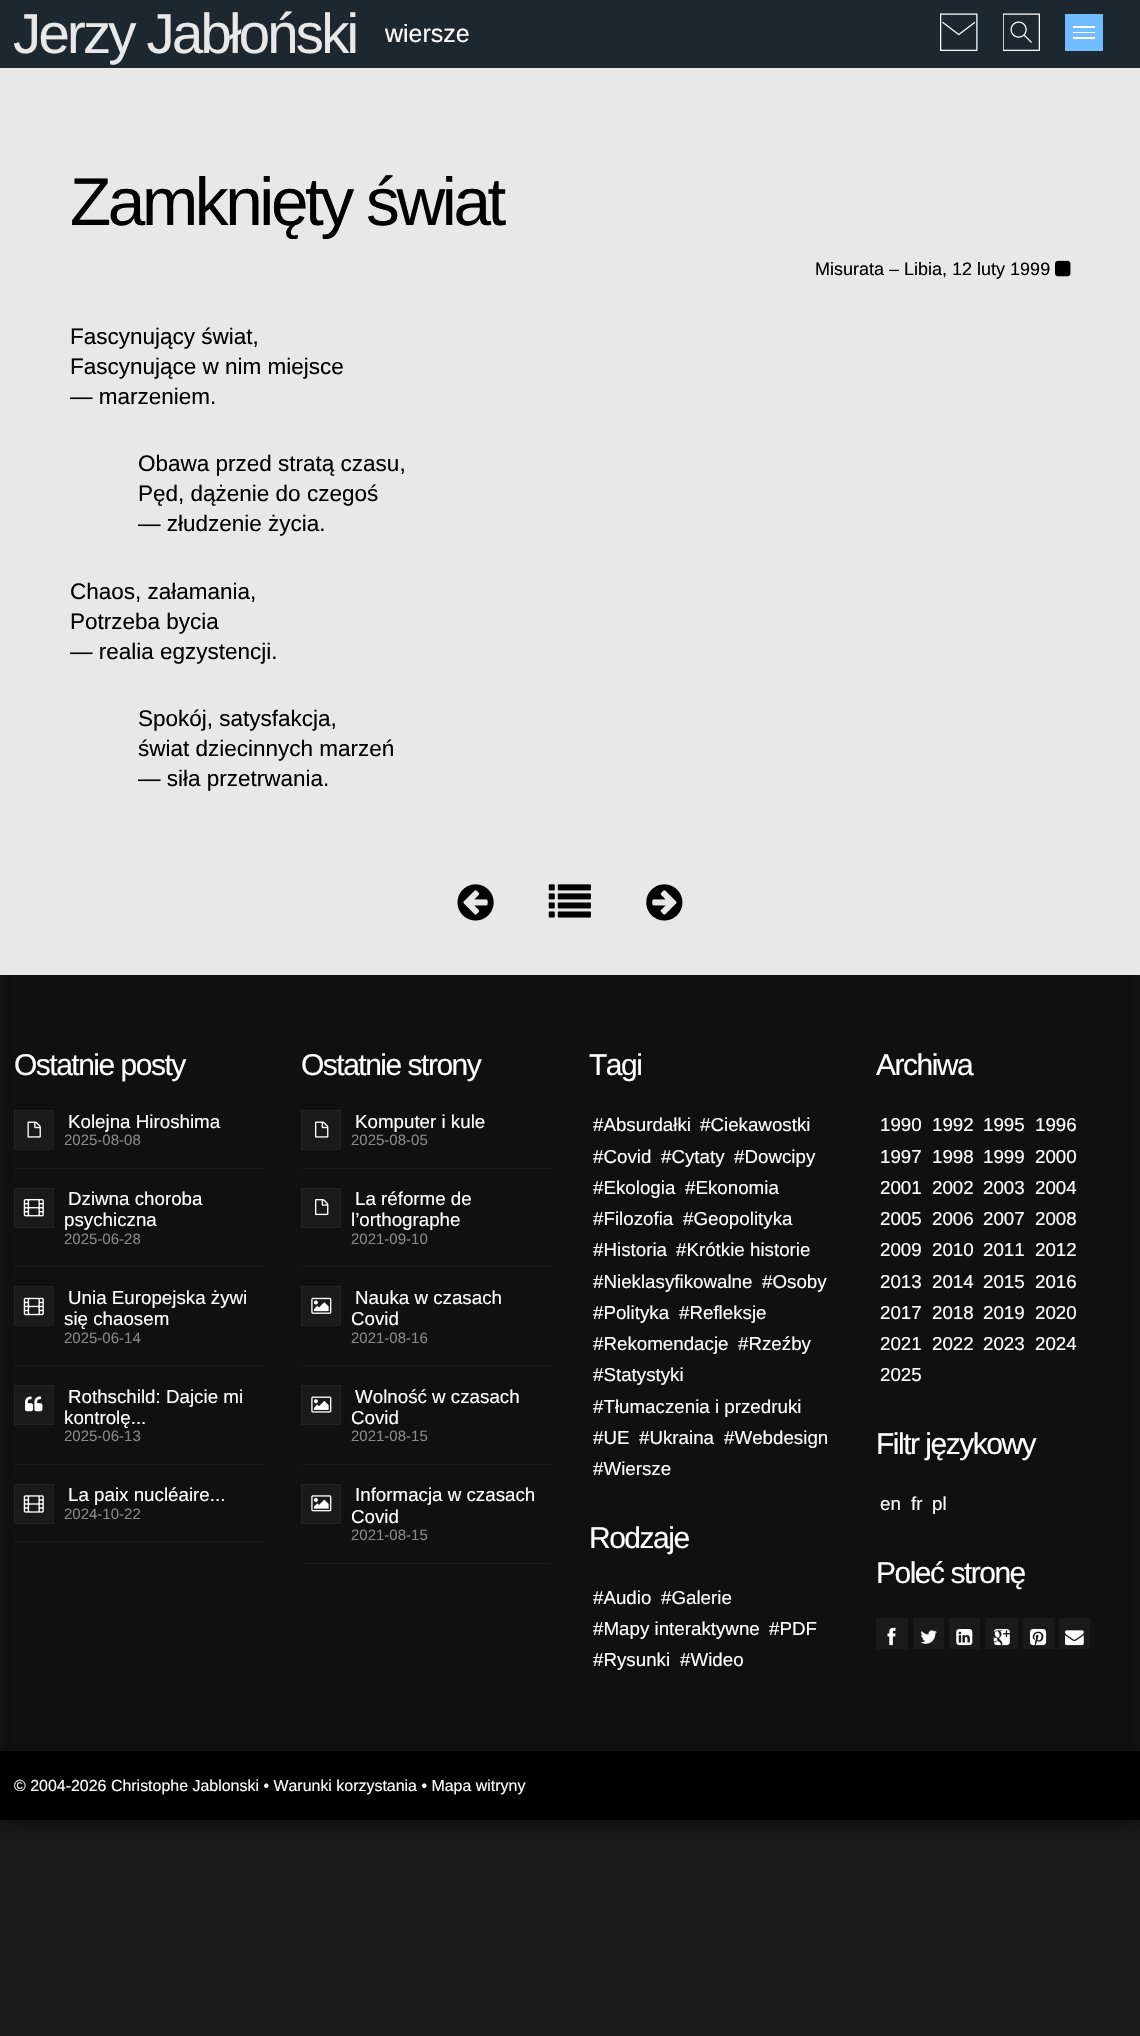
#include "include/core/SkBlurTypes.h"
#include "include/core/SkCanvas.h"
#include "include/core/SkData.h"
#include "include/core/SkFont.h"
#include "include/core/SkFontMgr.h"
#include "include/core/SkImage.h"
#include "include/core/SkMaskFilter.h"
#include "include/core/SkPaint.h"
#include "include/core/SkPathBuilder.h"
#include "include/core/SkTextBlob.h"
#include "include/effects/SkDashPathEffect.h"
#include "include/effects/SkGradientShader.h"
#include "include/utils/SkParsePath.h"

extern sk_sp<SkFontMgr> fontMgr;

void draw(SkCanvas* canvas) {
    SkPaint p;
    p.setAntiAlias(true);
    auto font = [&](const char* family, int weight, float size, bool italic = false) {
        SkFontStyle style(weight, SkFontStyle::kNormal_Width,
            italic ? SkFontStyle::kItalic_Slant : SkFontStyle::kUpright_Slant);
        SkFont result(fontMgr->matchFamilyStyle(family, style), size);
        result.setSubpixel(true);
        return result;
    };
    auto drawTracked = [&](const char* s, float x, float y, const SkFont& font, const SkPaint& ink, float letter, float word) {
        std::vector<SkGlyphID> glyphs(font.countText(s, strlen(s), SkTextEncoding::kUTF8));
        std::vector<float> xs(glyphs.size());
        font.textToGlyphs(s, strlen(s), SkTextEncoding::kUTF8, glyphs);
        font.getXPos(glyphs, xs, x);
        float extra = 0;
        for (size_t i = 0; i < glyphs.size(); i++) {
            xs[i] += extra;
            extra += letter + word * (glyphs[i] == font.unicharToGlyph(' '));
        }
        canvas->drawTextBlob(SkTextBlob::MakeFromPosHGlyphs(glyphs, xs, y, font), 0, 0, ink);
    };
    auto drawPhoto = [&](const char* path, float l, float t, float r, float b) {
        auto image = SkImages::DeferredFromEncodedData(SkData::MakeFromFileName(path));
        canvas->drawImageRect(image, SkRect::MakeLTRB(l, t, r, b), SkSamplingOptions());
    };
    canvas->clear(0xFF1A1A1A);
    p.setColor(0x80000000);
    p.setMaskFilter(SkMaskFilter::MakeBlur(kNormal_SkBlurStyle, 12.5f));
    canvas->drawRect(SkRect::MakeLTRB(-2, -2, 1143, 1823), p);
    p.setMaskFilter(nullptr);
    p.setColor(0xFFE8E8E8);
    canvas->drawRect(SkRect::MakeLTRB(0, 68, 1140, 975), p);
    p.setColor(0xFF1C2730);
    canvas->drawRect(SkRect::MakeLTRB(0, 0, 1140, 68), p);
    auto font1 = font("Liberation Sans", 400, 56.25f);
    p.setColor(0xFFE8E8E8);
    drawTracked("Jerzy Jabłoński", 13, 53, font1, p, -2.75f, 0);
    auto font2 = font("Liberation Sans", 400, 25);
    p.setColor(0xFFFFFFFF);
    canvas->drawString("wiersze", 385, 42, font2, p);
    drawPhoto("media/1.png", 940, 13, 978, 51);
    drawPhoto("media/2.png", 1003, 13, 1040, 51);
    {
        const struct { float l, t, r, b; SkColor color; } items[] = {
            {1065, 14, 1103, 51, 0xFF72BDFF},
            {1073, 26, 1095, 28, 0xFFFFFFFF},
            {1073, 32, 1095, 33, 0xFFFFFFFF},
            {1073, 37, 1095, 39, 0xFFFFFFFF},
        };
        for (auto [l, t, r, b, color] : items) {
            p.setColor(color);
            canvas->drawRect(SkRect::MakeLTRB(l, t, r, b), p);
        }
    }
    auto font3 = font("Liberation Sans", 400, 67.5f);
    p.setColor(0xFF000000);
    drawTracked("Zamknięty świat", 70, 225, font3, p, -3.4f, 0);
    auto font4 = font("Liberation Sans", 400, 18);
    canvas->drawString("Misurata – Libia, 12 luty 1999", 815, 275, font4, p);
    drawPhoto("media/3.png", 1055, 260, 1071, 277);
    auto font5 = font("Liberation Sans", 400, 22.5f);
    {
        const struct { const char* s; float x, y; } items[] = {
            {"Fascynujący świat,", 70, 344},
            {"Fascynujące w nim miejsce", 70, 374},
            {"— marzeniem.", 70, 404},
            {"Obawa przed stratą czasu,", 138, 471},
            {"Pęd, dążenie do czegoś", 138, 501},
            {"— złudzenie życia.", 138, 531},
            {"Chaos, załamania,", 70, 599},
            {"Potrzeba bycia", 70, 629},
            {"— realia egzystencji.", 70, 659},
            {"Spokój, satysfakcja,", 138, 726},
            {"świat dziecinnych marzeń", 138, 756},
            {"— siła przetrwania.", 138, 786},
        };
        for (auto [s, x, y] : items) {
            canvas->drawString(s, x, y, font5, p);
        }
    }
    drawPhoto("media/4.png", 457, 884, 494, 921);
    drawPhoto("media/5.png", 548, 884, 591, 918);
    drawPhoto("media/6.png", 646, 884, 683, 921);
    p.setColor(0xFF111010);
    canvas->drawRect(SkRect::MakeLTRB(13, 975, 1128, 1751), p);
    auto font6 = font("Liberation Sans", 400, 30);
    p.setColor(0xFFFFFFFF);
    drawTracked("Ostatnie posty", 14, 1075, font6, p, -1.5f, 0);
    p.setColor(0xFF1B1A1A);
    canvas->drawRect(SkRect::MakeLTRB(14, 1168, 264, 1169), p);
    canvas->drawRect(SkRect::MakeLTRB(14.5f, 1110.5f, 53.5f, 1149.5f), p);
    p.setStyle(SkPaint::kStroke_Style);
    p.setStrokeWidth(1);
    p.setColor(0xFF242323);
    canvas->drawRect(SkRect::MakeLTRB(14.5f, 1110.5f, 53.5f, 1149.5f), p);
    drawPhoto("media/7.png", 27, 1121, 41, 1138);
    auto font7 = font("Liberation Sans", 400, 18.75f);
    p.setStyle(SkPaint::kFill_Style);
    p.setColor(0xFFFFFFFF);
    canvas->drawString("Kolejna Hiroshima", 68, 1128, font7, p);
    auto font8 = font("Liberation Sans", 400, 15);
    p.setColor(0xFF888888);
    canvas->drawString("2025-08-08", 64, 1145, font8, p);
    p.setColor(0xFF1B1A1A);
    canvas->drawRect(SkRect::MakeLTRB(14, 1266, 264, 1267), p);
    canvas->drawRect(SkRect::MakeLTRB(14.5f, 1188.5f, 53.5f, 1227.5f), p);
    p.setStyle(SkPaint::kStroke_Style);
    p.setColor(0xFF242323);
    canvas->drawRect(SkRect::MakeLTRB(14.5f, 1188.5f, 53.5f, 1227.5f), p);
    drawPhoto("media/8.png", 23, 1199, 44, 1217);
    p.setStyle(SkPaint::kFill_Style);
    p.setColor(0xFFFFFFFF);
    canvas->drawString("Dziwna choroba", 68, 1205, font7, p);
    canvas->drawString("psychiczna", 64, 1226, font7, p);
    p.setColor(0xFF888888);
    canvas->drawString("2025-06-28", 64, 1244, font8, p);
    p.setColor(0xFF1B1A1A);
    canvas->drawRect(SkRect::MakeLTRB(14, 1365, 264, 1366), p);
    canvas->drawRect(SkRect::MakeLTRB(14.5f, 1286.5f, 53.5f, 1325.5f), p);
    p.setStyle(SkPaint::kStroke_Style);
    p.setColor(0xFF242323);
    canvas->drawRect(SkRect::MakeLTRB(14.5f, 1286.5f, 53.5f, 1325.5f), p);
    drawPhoto("media/9.png", 23, 1297, 44, 1316);
    p.setStyle(SkPaint::kFill_Style);
    p.setColor(0xFFFFFFFF);
    canvas->drawString("Unia Europejska żywi", 68, 1304, font7, p);
    canvas->drawString("się chaosem", 64, 1325, font7, p);
    p.setColor(0xFF888888);
    canvas->drawString("2025-06-14", 64, 1343, font8, p);
    p.setColor(0xFF1B1A1A);
    canvas->drawRect(SkRect::MakeLTRB(14, 1464, 264, 1465), p);
    canvas->drawRect(SkRect::MakeLTRB(14.5f, 1385.5f, 53.5f, 1424.5f), p);
    p.setStyle(SkPaint::kStroke_Style);
    p.setColor(0xFF242323);
    canvas->drawRect(SkRect::MakeLTRB(14.5f, 1385.5f, 53.5f, 1424.5f), p);
    drawPhoto("media/10.png", 25, 1396, 43, 1412);
    p.setStyle(SkPaint::kFill_Style);
    p.setColor(0xFFFFFFFF);
    canvas->drawString("Rothschild: Dajcie mi", 68, 1403, font7, p);
    canvas->drawString("kontrolę...", 64, 1424, font7, p);
    p.setColor(0xFF888888);
    canvas->drawString("2025-06-13", 64, 1441, font8, p);
    p.setColor(0xFF1B1A1A);
    canvas->drawRect(SkRect::MakeLTRB(14, 1541, 264, 1542), p);
    canvas->drawRect(SkRect::MakeLTRB(14.5f, 1484.5f, 53.5f, 1523.5f), p);
    p.setStyle(SkPaint::kStroke_Style);
    p.setColor(0xFF242323);
    canvas->drawRect(SkRect::MakeLTRB(14.5f, 1484.5f, 53.5f, 1523.5f), p);
    drawPhoto("media/11.png", 23, 1495, 44, 1513);
    p.setStyle(SkPaint::kFill_Style);
    p.setColor(0xFFFFFFFF);
    canvas->drawString("La paix nucléaire...", 68, 1501, font7, p);
    p.setColor(0xFF888888);
    canvas->drawString("2024-10-22", 64, 1519, font8, p);
    p.setColor(0xFFFFFFFF);
    drawTracked("Ostatnie strony", 301, 1075, font6, p, -1.5f, 0);
    p.setColor(0xFF1B1A1A);
    canvas->drawRect(SkRect::MakeLTRB(301, 1168, 551, 1169), p);
    canvas->drawRect(SkRect::MakeLTRB(301.5f, 1110.5f, 340.5f, 1149.5f), p);
    p.setStyle(SkPaint::kStroke_Style);
    p.setColor(0xFF242323);
    canvas->drawRect(SkRect::MakeLTRB(301.5f, 1110.5f, 340.5f, 1149.5f), p);
    drawPhoto("media/12.png", 315, 1121, 329, 1138);
    p.setStyle(SkPaint::kFill_Style);
    p.setColor(0xFFFFFFFF);
    canvas->drawString("Komputer i kule", 355, 1128, font7, p);
    p.setColor(0xFF888888);
    canvas->drawString("2025-08-05", 351, 1145, font8, p);
    p.setColor(0xFF1B1A1A);
    canvas->drawRect(SkRect::MakeLTRB(301, 1266, 551, 1267), p);
    canvas->drawRect(SkRect::MakeLTRB(301.5f, 1188.5f, 340.5f, 1227.5f), p);
    p.setStyle(SkPaint::kStroke_Style);
    p.setColor(0xFF242323);
    canvas->drawRect(SkRect::MakeLTRB(301.5f, 1188.5f, 340.5f, 1227.5f), p);
    drawPhoto("media/13.png", 315, 1199, 329, 1216);
    p.setStyle(SkPaint::kFill_Style);
    p.setColor(0xFFFFFFFF);
    canvas->drawString("La réforme de", 355, 1205, font7, p);
    canvas->drawString("l’orthographe", 351, 1226, font7, p);
    p.setColor(0xFF888888);
    canvas->drawString("2021-09-10", 351, 1244, font8, p);
    p.setColor(0xFF1B1A1A);
    canvas->drawRect(SkRect::MakeLTRB(301, 1365, 551, 1366), p);
    canvas->drawRect(SkRect::MakeLTRB(301.5f, 1286.5f, 340.5f, 1325.5f), p);
    p.setStyle(SkPaint::kStroke_Style);
    p.setColor(0xFF242323);
    canvas->drawRect(SkRect::MakeLTRB(301.5f, 1286.5f, 340.5f, 1325.5f), p);
    drawPhoto("media/14.png", 311, 1297, 332, 1314);
    p.setStyle(SkPaint::kFill_Style);
    p.setColor(0xFFFFFFFF);
    canvas->drawString("Nauka w czasach", 355, 1304, font7, p);
    canvas->drawString("Covid", 351, 1325, font7, p);
    p.setColor(0xFF888888);
    canvas->drawString("2021-08-16", 351, 1343, font8, p);
    p.setColor(0xFF1B1A1A);
    canvas->drawRect(SkRect::MakeLTRB(301, 1464, 551, 1465), p);
    canvas->drawRect(SkRect::MakeLTRB(301.5f, 1385.5f, 340.5f, 1424.5f), p);
    p.setStyle(SkPaint::kStroke_Style);
    p.setColor(0xFF242323);
    canvas->drawRect(SkRect::MakeLTRB(301.5f, 1385.5f, 340.5f, 1424.5f), p);
    drawPhoto("media/15.png", 311, 1396, 332, 1413);
    p.setStyle(SkPaint::kFill_Style);
    p.setColor(0xFFFFFFFF);
    canvas->drawString("Wolność w czasach", 355, 1403, font7, p);
    canvas->drawString("Covid", 351, 1424, font7, p);
    p.setColor(0xFF888888);
    canvas->drawString("2021-08-15", 351, 1441, font8, p);
    p.setColor(0xFF1B1A1A);
    canvas->drawRect(SkRect::MakeLTRB(301, 1563, 551, 1564), p);
    canvas->drawRect(SkRect::MakeLTRB(301.5f, 1484.5f, 340.5f, 1523.5f), p);
    p.setStyle(SkPaint::kStroke_Style);
    p.setColor(0xFF242323);
    canvas->drawRect(SkRect::MakeLTRB(301.5f, 1484.5f, 340.5f, 1523.5f), p);
    drawPhoto("media/16.png", 311, 1495, 332, 1512);
    p.setStyle(SkPaint::kFill_Style);
    p.setColor(0xFFFFFFFF);
    canvas->drawString("Informacja w czasach", 355, 1501, font7, p);
    canvas->drawString("Covid", 351, 1523, font7, p);
    p.setColor(0xFF888888);
    canvas->drawString("2021-08-15", 351, 1540, font8, p);
    p.setColor(0xFFFFFFFF);
    drawTracked("Tagi", 589, 1075, font6, p, -1.5f, 0);
    {
        const struct { const char* s; float x, y; } items[] = {
            {"#Absurdałki", 593, 1131},
            {"#Ciekawostki", 700, 1131},
            {"#Covid", 593, 1163},
            {"#Cytaty", 661, 1163},
            {"#Dowcipy", 734, 1163},
            {"#Ekologia", 593, 1194},
            {"#Ekonomia", 685, 1194},
            {"#Filozofia", 593, 1225},
            {"#Geopolityka", 683, 1225},
            {"#Historia", 593, 1256},
            {"#Krótkie historie", 676, 1256},
            {"#Nieklasyfikowalne", 593, 1288},
            {"#Osoby", 762, 1288},
            {"#Polityka", 593, 1319},
            {"#Refleksje", 679, 1319},
            {"#Rekomendacje", 593, 1350},
            {"#Rzeźby", 738, 1350},
            {"#Statystyki", 593, 1381},
            {"#Tłumaczenia i przedruki", 593, 1413},
            {"#UE", 593, 1444},
            {"#Ukraina", 639, 1444},
            {"#Webdesign", 724, 1444},
            {"#Wiersze", 593, 1475},
        };
        for (auto [s, x, y] : items) {
            canvas->drawString(s, x, y, font7, p);
        }
    }
    drawTracked("Rodzaje", 589, 1548, font6, p, -1.5f, 0);
    {
        const struct { const char* s; float x, y; } items[] = {
            {"#Audio", 593, 1604},
            {"#Galerie", 661, 1604},
            {"#Mapy interaktywne", 593, 1635},
            {"#PDF", 769, 1635},
            {"#Rysunki", 593, 1666},
            {"#Wideo", 680, 1666},
        };
        for (auto [s, x, y] : items) {
            canvas->drawString(s, x, y, font7, p);
        }
    }
    drawTracked("Archiwa", 876, 1075, font6, p, -1.5f, 0);
    {
        const struct { const char* s; float x, y; } items[] = {
            {"1990", 880, 1131},
            {"1992", 932, 1131},
            {"1995", 983, 1131},
            {"1996", 1035, 1131},
            {"1997", 880, 1163},
            {"1998", 932, 1163},
            {"1999", 983, 1163},
            {"2000", 1035, 1163},
            {"2001", 880, 1194},
            {"2002", 932, 1194},
            {"2003", 983, 1194},
            {"2004", 1035, 1194},
            {"2005", 880, 1225},
            {"2006", 932, 1225},
            {"2007", 983, 1225},
            {"2008", 1035, 1225},
            {"2009", 880, 1256},
            {"2010", 932, 1256},
            {"2011", 983, 1256},
            {"2012", 1035, 1256},
            {"2013", 880, 1288},
            {"2014", 932, 1288},
            {"2015", 983, 1288},
            {"2016", 1035, 1288},
            {"2017", 880, 1319},
            {"2018", 932, 1319},
            {"2019", 983, 1319},
            {"2020", 1035, 1319},
            {"2021", 880, 1350},
            {"2022", 932, 1350},
            {"2023", 983, 1350},
            {"2024", 1035, 1350},
            {"2025", 880, 1381},
        };
        for (auto [s, x, y] : items) {
            canvas->drawString(s, x, y, font7, p);
        }
    }
    drawTracked("Filtr językowy", 876, 1454, font6, p, -1.5f, 0);
    {
        const struct { const char* s; float x, y; } items[] = {
            {"en", 880, 1510},
            {"fr", 911, 1510},
            {"pl", 932, 1510},
        };
        for (auto [s, x, y] : items) {
            canvas->drawString(s, x, y, font7, p);
        }
    }
    drawTracked("Poleć stronę", 876, 1583, font6, p, -1.5f, 0);
    p.setColor(0xFF1B1A1A);
    canvas->drawRect(SkRect::MakeLTRB(876, 1618, 908, 1649), p);
    drawPhoto("media/17.png", 887, 1627, 896, 1646);
    canvas->drawRect(SkRect::MakeLTRB(913, 1618, 944, 1649), p);
    drawPhoto("media/18.png", 920, 1630, 937, 1644);
    canvas->drawRect(SkRect::MakeLTRB(949, 1618, 980, 1649), p);
    drawPhoto("media/19.png", 956, 1629, 973, 1646);
    canvas->drawRect(SkRect::MakeLTRB(986, 1618, 1018, 1649), p);
    drawPhoto("media/20.png", 993, 1629, 1010, 1646);
    canvas->drawRect(SkRect::MakeLTRB(1023, 1618, 1054, 1649), p);
    drawPhoto("media/21.png", 1030, 1629, 1047, 1646);
    canvas->drawRect(SkRect::MakeLTRB(1059, 1618, 1090, 1649), p);
    drawPhoto("media/22.png", 1065, 1630, 1084, 1646);
    p.setColor(0xFF000000);
    canvas->drawRect(SkRect::MakeLTRB(0, 1751, 1140, 1820), p);
    auto font9 = font("Liberation Sans", 400, 15.95f);
    p.setColor(0xFFFFFFFF);
    canvas->drawString("© 2004-2026 Christophe Jablonski • Warunki korzystania • Mapa witryny", 14, 1791, font9, p);
}
